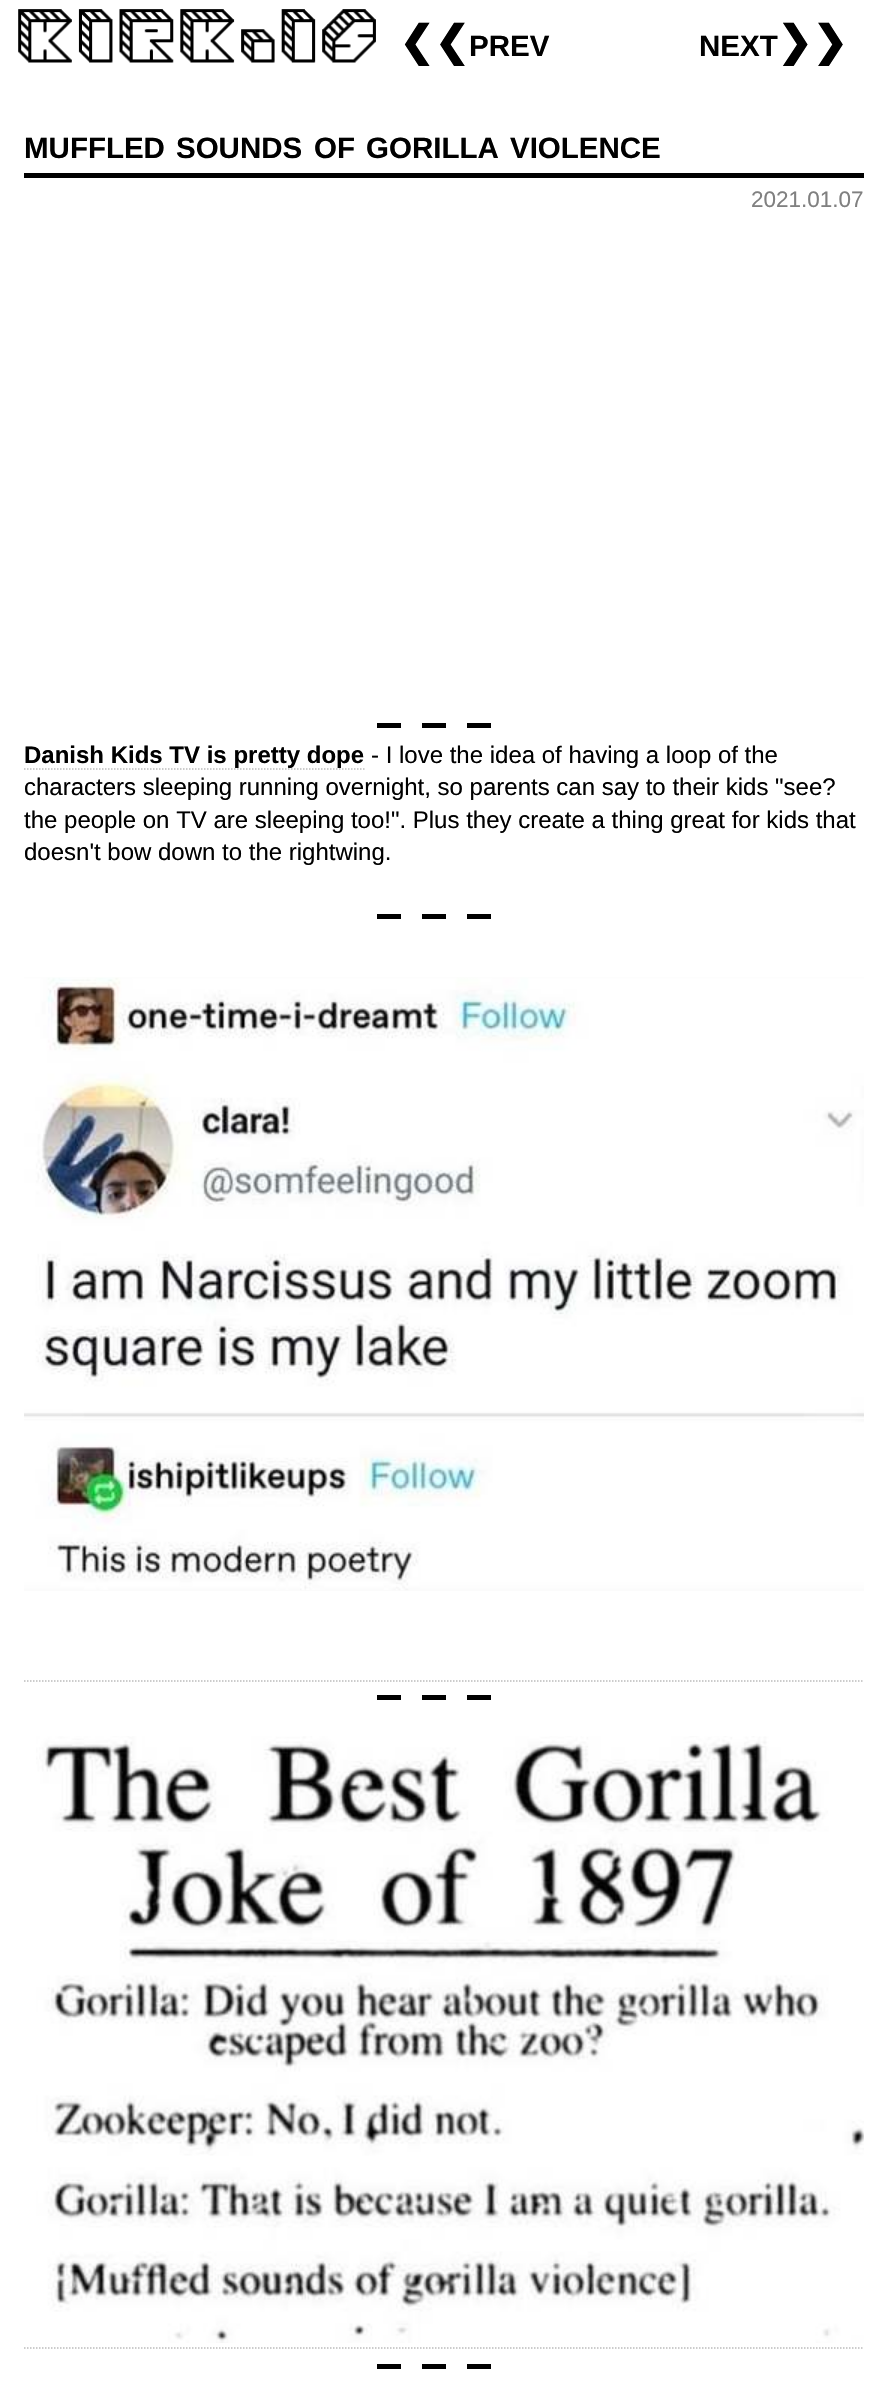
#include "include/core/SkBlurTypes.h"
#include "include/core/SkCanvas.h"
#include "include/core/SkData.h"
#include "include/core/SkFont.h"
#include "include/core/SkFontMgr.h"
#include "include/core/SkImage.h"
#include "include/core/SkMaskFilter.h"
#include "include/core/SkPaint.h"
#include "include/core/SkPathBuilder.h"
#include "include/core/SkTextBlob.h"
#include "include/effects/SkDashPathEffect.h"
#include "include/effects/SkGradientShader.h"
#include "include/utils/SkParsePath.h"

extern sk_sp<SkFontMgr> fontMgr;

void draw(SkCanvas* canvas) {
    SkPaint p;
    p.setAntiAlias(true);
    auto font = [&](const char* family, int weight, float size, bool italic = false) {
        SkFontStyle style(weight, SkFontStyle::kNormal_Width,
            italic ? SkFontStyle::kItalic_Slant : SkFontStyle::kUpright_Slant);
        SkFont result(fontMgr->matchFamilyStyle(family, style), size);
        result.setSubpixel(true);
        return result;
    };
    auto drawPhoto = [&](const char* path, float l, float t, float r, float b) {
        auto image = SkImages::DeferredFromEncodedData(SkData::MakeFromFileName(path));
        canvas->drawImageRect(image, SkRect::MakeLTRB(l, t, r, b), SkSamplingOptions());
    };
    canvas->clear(0xFFFFFFFF);
    drawPhoto("media/1.png", 18, 9, 376, 63);
    auto font1 = font("DejaVu Sans", 700, 42);
    p.setColor(0xFF000000);
    canvas->drawString("❮❮", 399, 56, font1, p);
    auto font2 = font("Liberation Sans", 700, 29.5f);
    canvas->drawString("PREV", 469, 56, font2, p);
    canvas->drawString("NEXT", 699, 56, font2, p);
    canvas->drawString("❯❯", 777, 56, font1, p);
    canvas->drawRect(SkRect::MakeLTRB(24, 173, 864, 178), p);
    {
        const struct { const char* s; float x, y; } items[] = {
            {"MUFFLED", 24, 158},
            {"SOUNDS", 176, 158},
            {"OF", 314, 158},
            {"GORILLA", 366, 158},
            {"VIOLENCE", 510, 158},
        };
        for (auto [s, x, y] : items) {
            canvas->drawString(s, x, y, font2, p);
        }
    }
    auto font3 = font("Liberation Sans", 400, 22.5f);
    p.setColor(0xFF808080);
    canvas->drawString("2021.01.07", 751, 207, font3, p);
    {
        const struct { float l, t, r, b; SkColor color; } items[] = {
            {377, 723, 401, 728, 0xFF000000},
            {422, 723, 446, 728, 0xFF000000},
            {467, 723, 491, 728, 0xFF000000},
        };
        for (auto [l, t, r, b, color] : items) {
            p.setColor(color);
            canvas->drawRect(SkRect::MakeLTRB(l, t, r, b), p);
        }
    }
    auto font4 = font("Liberation Sans", 700, 24);
    canvas->drawString("Danish Kids TV is pretty dope", 24, 763, font4, p);
    p.setStyle(SkPaint::kStroke_Style);
    p.setStrokeWidth(1.5f);
    p.setColor(0xFFBBBBBB);
    p.setPathEffect(SkDashPathEffect::Make({{1.5f, 1.5f}}, 0));
    canvas->drawPath(SkPathBuilder().moveTo(24, 769).lineTo(364.5f, 769).detach(), p);
    p.setPathEffect(nullptr);
    auto font5 = font("Liberation Sans", 400, 24);
    p.setStyle(SkPaint::kFill_Style);
    p.setColor(0xFF000000);
    {
        const struct { const char* s; float x, y; } items[] = {
            {"- I love the idea of having a loop of the", 371, 763},
            {"characters sleeping running overnight, so parents can say to their kids \"see?", 24, 795},
            {"the people on TV are sleeping too!\". Plus they create a thing great for kids that", 24, 828},
            {"doesn't bow down to the rightwing.", 24, 860},
        };
        for (auto [s, x, y] : items) {
            canvas->drawString(s, x, y, font5, p);
        }
    }
    {
        const struct { float l, t, r, b; SkColor color; } items[] = {
            {377, 914, 401, 919, 0xFF000000},
            {422, 914, 446, 919, 0xFF000000},
            {467, 914, 491, 919, 0xFF000000},
        };
        for (auto [l, t, r, b, color] : items) {
            p.setColor(color);
            canvas->drawRect(SkRect::MakeLTRB(l, t, r, b), p);
        }
    }
    drawPhoto("media/2.png", 24, 977, 864, 1591);
    p.setStyle(SkPaint::kStroke_Style);
    p.setColor(0xFFBBBBBB);
    p.setPathEffect(SkDashPathEffect::Make({{1.5f, 1.5f}}, 0));
    canvas->drawPath(SkPathBuilder().moveTo(24, 1681).lineTo(864, 1681).detach(), p);
    p.setPathEffect(nullptr);
    p.setStyle(SkPaint::kFill_Style);
    {
        const struct { float l, t, r, b; SkColor color; } items[] = {
            {377, 1695, 401, 1700, 0xFF000000},
            {422, 1695, 446, 1700, 0xFF000000},
            {467, 1695, 491, 1700, 0xFF000000},
        };
        for (auto [l, t, r, b, color] : items) {
            p.setColor(color);
            canvas->drawRect(SkRect::MakeLTRB(l, t, r, b), p);
        }
    }
    drawPhoto("media/3.png", 36, 1736, 864, 2343);
    p.setStyle(SkPaint::kStroke_Style);
    p.setColor(0xFFBBBBBB);
    p.setPathEffect(SkDashPathEffect::Make({{1.5f, 1.5f}}, 0));
    canvas->drawPath(SkPathBuilder().moveTo(24, 2348).lineTo(864, 2348).detach(), p);
    p.setPathEffect(nullptr);
    p.setStyle(SkPaint::kFill_Style);
    {
        const struct { float l, t, r, b; SkColor color; } items[] = {
            {377, 2364, 401, 2369, 0xFF000000},
            {422, 2364, 446, 2369, 0xFF000000},
            {467, 2364, 491, 2369, 0xFF000000},
        };
        for (auto [l, t, r, b, color] : items) {
            p.setColor(color);
            canvas->drawRect(SkRect::MakeLTRB(l, t, r, b), p);
        }
    }
}
